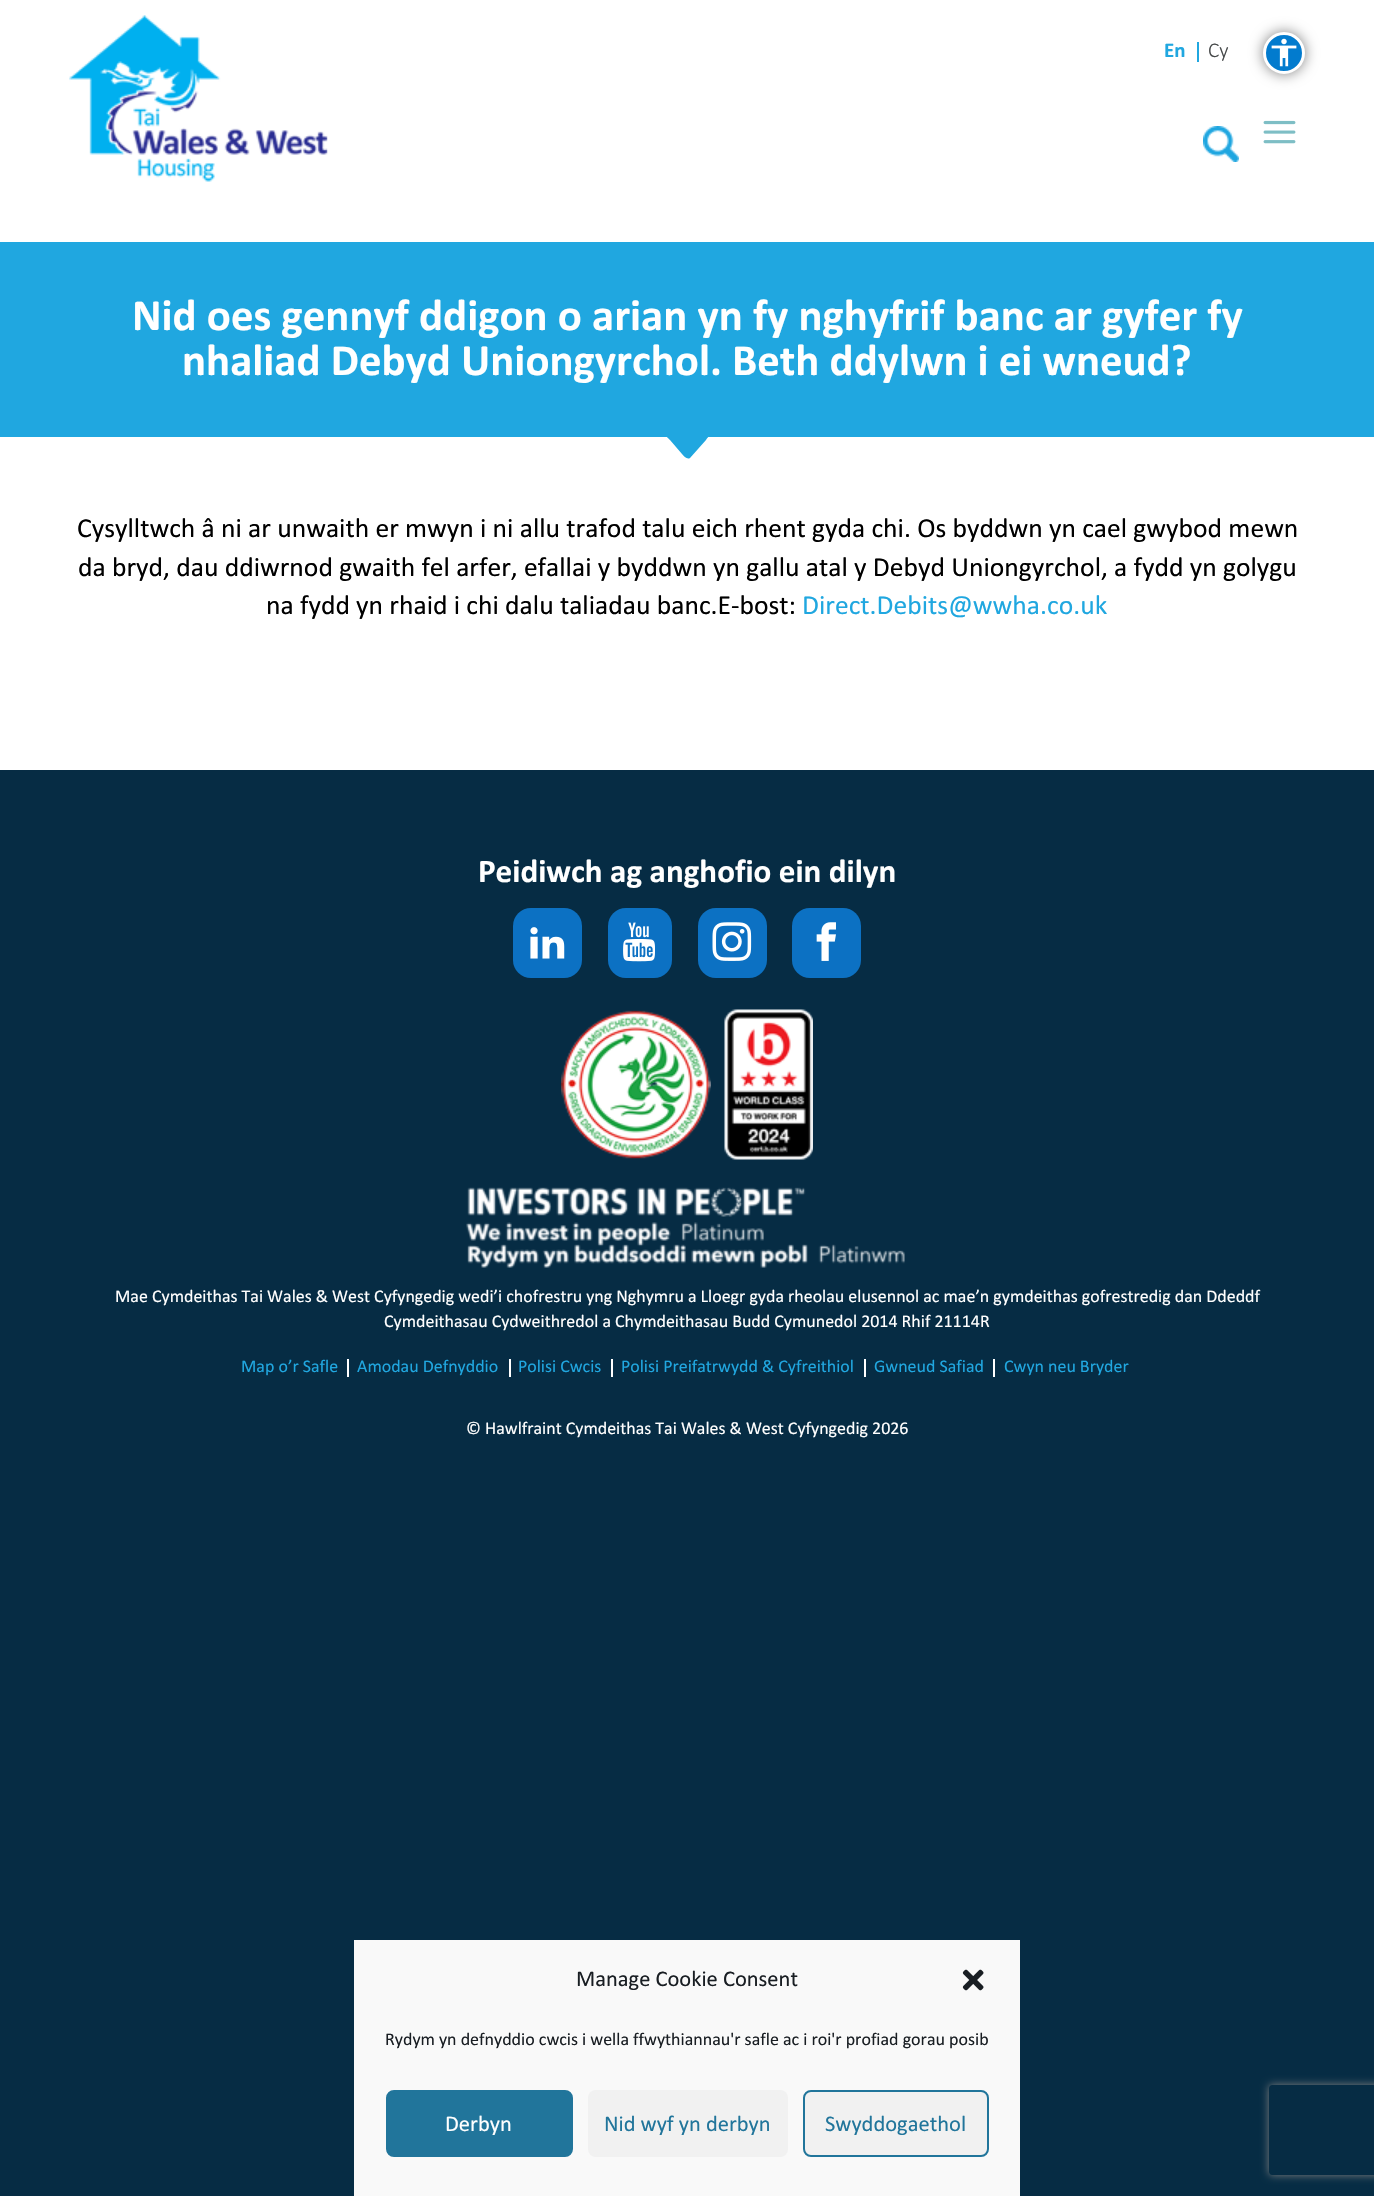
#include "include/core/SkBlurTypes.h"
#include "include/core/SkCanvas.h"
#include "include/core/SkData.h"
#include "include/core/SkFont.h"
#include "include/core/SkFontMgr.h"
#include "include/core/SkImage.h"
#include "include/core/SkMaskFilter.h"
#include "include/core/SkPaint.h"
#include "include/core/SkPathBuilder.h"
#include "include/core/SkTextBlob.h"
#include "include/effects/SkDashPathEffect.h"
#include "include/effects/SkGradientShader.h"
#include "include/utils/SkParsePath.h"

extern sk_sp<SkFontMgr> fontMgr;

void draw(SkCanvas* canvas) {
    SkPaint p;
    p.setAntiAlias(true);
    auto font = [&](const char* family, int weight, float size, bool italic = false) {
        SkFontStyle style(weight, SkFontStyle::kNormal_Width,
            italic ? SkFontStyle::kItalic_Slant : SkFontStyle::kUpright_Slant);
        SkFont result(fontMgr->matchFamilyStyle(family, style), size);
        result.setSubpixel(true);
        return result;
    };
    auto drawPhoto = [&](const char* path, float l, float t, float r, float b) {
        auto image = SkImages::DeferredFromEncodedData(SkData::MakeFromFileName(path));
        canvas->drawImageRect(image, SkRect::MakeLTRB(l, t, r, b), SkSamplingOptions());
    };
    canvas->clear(0xFF062C44);
    p.setColor(0xFFFFFFFF);
    canvas->drawRect(SkRect::MakeLTRB(0, 0, 1374, 242), p);
    drawPhoto("media/1.png", 69, 15, 328, 182);
    auto font1 = font("Calibri", 700, 21);
    p.setColor(0xFF20A7E0);
    canvas->drawString("En", 1164, 57, font1, p);
    auto font2 = font("Calibri", 300, 21);
    p.setColor(0xFF454849);
    canvas->drawString("Cy", 1208, 57, font2, p);
    p.setColor(0xFF20A7E0);
    canvas->drawRect(SkRect::MakeLTRB(1197, 42, 1199, 62), p);
    p.setColor(0x80000000);
    p.setMaskFilter(SkMaskFilter::MakeBlur(kNormal_SkBlurStyle, 7));
    canvas->drawRoundRect(SkRect::MakeLTRB(1263, 32, 1305, 74), 21, 21, p);
    p.setMaskFilter(nullptr);
    p.setColor(0xFF027BCE);
    canvas->drawCircle(1284, 53, 19.5f, p);
    p.setStyle(SkPaint::kStroke_Style);
    p.setStrokeWidth(3);
    p.setColor(0xFFFFFFFF);
    canvas->drawCircle(1284, 53, 19.5f, p);
    drawPhoto("media/2.png", 1271, 38, 1297, 67);
    drawPhoto("media/3.png", 1203, 126, 1239, 162);
    drawPhoto("media/4.png", 1263, 120, 1296, 144);
    p.setStyle(SkPaint::kFill_Style);
    canvas->drawRect(SkRect::MakeLTRB(0, 437, 1374, 770), p);
    p.setColor(0xFF20A7E0);
    canvas->drawRect(SkRect::MakeLTRB(0, 242, 1374, 437), p);
    auto font3 = font("Calibri", 700, 44.85f);
    p.setColor(0xFFFFFFFF);
    canvas->drawString("Nid oes gennyf ddigon o arian yn fy nghyfrif banc ar gyfer fy", 132, 330, font3, p);
    canvas->drawString("nhaliad Debyd Uniongyrchol. Beth ddylwn i ei wneud?", 182, 375, font3, p);
    p.setColor(0xFF20A7E0);
    canvas->drawPath(SkPathBuilder().moveTo(690, 458).lineTo(706, 440).cubicTo(707, 438, 711, 435, 709, 432).lineTo(707, 431).lineTo(668, 431).lineTo(667, 432).cubicTo(664, 435, 668, 438, 670, 440).lineTo(682, 454).cubicTo(684, 456, 687, 460, 690, 458).close().detach(), p);
    auto font4 = font("Calibri", 400, 27.6f);
    p.setColor(0xFF000000);
    {
        const struct { const char* s; float x, y; } items[] = {
            {"Cysylltwch â ni ar unwaith er mwyn i ni allu trafod talu eich rhent gyda chi. Os byddwn yn cael gwybod mewn", 77, 537},
            {"da bryd, dau ddiwrnod gwaith fel arfer, efallai y byddwn yn gallu atal y Debyd Uniongyrchol, a fydd yn golygu", 78, 576},
            {"na fydd yn rhaid i chi dalu taliadau banc.E-bost:", 266, 614},
        };
        for (auto [s, x, y] : items) {
            canvas->drawString(s, x, y, font4, p);
        }
    }
    p.setColor(0xFF20A7E0);
    canvas->drawString("Direct.Debits@wwha.co.uk", 802, 614, font4, p);
    auto font5 = font("Calibri", 700, 33.1f);
    p.setColor(0xFFFFFFFF);
    canvas->drawString("Peidiwch ag anghofio ein dilyn", 478, 882, font5, p);
    p.setColor(0xFF0C71C3);
    canvas->drawRoundRect(SkRect::MakeLTRB(513, 908, 582, 978), 18, 18, p);
    drawPhoto("media/5.png", 530, 927, 565, 959);
    canvas->drawRoundRect(SkRect::MakeLTRB(608, 908, 672, 978), 18, 18, p);
    drawPhoto("media/6.png", 623, 922, 655, 962);
    canvas->drawRoundRect(SkRect::MakeLTRB(698, 908, 767, 978), 18, 18, p);
    drawPhoto("media/7.png", 712, 922, 752, 961);
    canvas->drawRoundRect(SkRect::MakeLTRB(792, 908, 861, 978), 18, 18, p);
    drawPhoto("media/8.png", 816, 922, 836, 961);
    drawPhoto("media/9.png", 561, 1010, 711, 1159);
    drawPhoto("media/10.png", 724, 1009, 813, 1160);
    drawPhoto("media/11.png", 466, 1187, 905, 1268);
    auto font6 = font("Calibri", 400, 17.95f);
    p.setColor(0xFFFFFFFF);
    canvas->drawString("Mae Cymdeithas Tai Wales & West Cyfyngedig wedi’i chofrestru yng Nghymru a Lloegr gyda rheolau elusennol ac mae’n gymdeithas gofrestredig dan Ddeddf", 115, 1302, font6, p);
    canvas->drawString("Cymdeithasau Cydweithredol a Chymdeithasau Budd Cymunedol 2014 Rhif 21114R", 384, 1327, font6, p);
    p.setColor(0xFF20A7E0);
    canvas->drawString("Map o’r Safle", 241, 1372, font6, p);
    p.setColor(0xFFFFFFFF);
    canvas->drawRect(SkRect::MakeLTRB(347, 1359, 349, 1377), p);
    p.setColor(0xFF20A7E0);
    canvas->drawString("Amodau Defnyddio", 357, 1372, font6, p);
    p.setColor(0xFFFFFFFF);
    canvas->drawRect(SkRect::MakeLTRB(509, 1359, 511, 1377), p);
    p.setColor(0xFF20A7E0);
    canvas->drawString("Polisi Cwcis", 518, 1372, font6, p);
    p.setColor(0xFFFFFFFF);
    canvas->drawRect(SkRect::MakeLTRB(611, 1359, 613, 1377), p);
    p.setColor(0xFF20A7E0);
    canvas->drawString("Polisi Preifatrwydd & Cyfreithiol", 621, 1372, font6, p);
    p.setColor(0xFFFFFFFF);
    canvas->drawRect(SkRect::MakeLTRB(864, 1359, 866, 1377), p);
    p.setColor(0xFF20A7E0);
    canvas->drawString("Gwneud Safiad", 874, 1372, font6, p);
    p.setColor(0xFFFFFFFF);
    canvas->drawRect(SkRect::MakeLTRB(993, 1359, 995, 1377), p);
    p.setColor(0xFF20A7E0);
    canvas->drawString("Cwyn neu Bryder", 1004, 1372, font6, p);
    p.setColor(0xFFFFFFFF);
    canvas->drawString("© Hawlfraint Cymdeithas Tai Wales & West Cyfyngedig 2026", 466, 1434, font6, p);
    p.setColor(0xFFF9F9F9);
    canvas->drawRect(SkRect::MakeLTRB(354, 1940, 1020, 2196), p);
    auto font7 = font("Calibri", 400, 22.5f);
    p.setColor(0xFF191E23);
    canvas->drawString("Manage Cookie Consent", 576, 1986, font7, p);
    drawPhoto("media/12.png", 962, 1969, 984, 1991);
    auto font8 = font("Calibri", 400, 18);
    canvas->drawString("Rydym yn defnyddio cwcis i wella ffwythiannau'r safle ac i roi'r profiad gorau posib", 385, 2045, font8, p);
    p.setColor(0xFF21759B);
    canvas->drawRoundRect(SkRect::MakeLTRB(387, 2091, 572, 2156), 7, 7, p);
    p.setStyle(SkPaint::kStroke_Style);
    p.setStrokeWidth(2);
    canvas->drawRoundRect(SkRect::MakeLTRB(387, 2091, 572, 2156), 7, 7, p);
    p.setStyle(SkPaint::kFill_Style);
    p.setColor(0xFFFFFFFF);
    canvas->drawString("Derbyn", 445, 2131, font7, p);
    p.setColor(0xFFF1F1F1);
    canvas->drawRoundRect(SkRect::MakeLTRB(588, 2090, 788, 2157), 8, 8, p);
    p.setColor(0xFF21759B);
    canvas->drawString("Nid wyf yn derbyn", 604, 2131, font7, p);
    p.setColor(0xFFF1F1F1);
    canvas->drawRoundRect(SkRect::MakeLTRB(804, 2091, 988, 2156), 7, 7, p);
    p.setStyle(SkPaint::kStroke_Style);
    p.setColor(0xFF21759B);
    canvas->drawRoundRect(SkRect::MakeLTRB(804, 2091, 988, 2156), 7, 7, p);
    p.setStyle(SkPaint::kFill_Style);
    canvas->drawString("Swyddogaethol", 825, 2131, font7, p);
    canvas->save();
    canvas->clipPath(SkPathBuilder(SkPathFillType::kEvenOdd).moveTo(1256, 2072).lineTo(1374, 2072).lineTo(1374, 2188).lineTo(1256, 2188).close().moveTo(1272, 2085).lineTo(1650, 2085).cubicTo(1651.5f, 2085, 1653, 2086.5f, 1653, 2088).lineTo(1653, 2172).cubicTo(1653, 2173.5f, 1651.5f, 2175, 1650, 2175).lineTo(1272, 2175).cubicTo(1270.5f, 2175, 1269, 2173.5f, 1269, 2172).lineTo(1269, 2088).cubicTo(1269, 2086.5f, 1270.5f, 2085, 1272, 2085).close().detach(), true);
    p.setColor(0xFF808080);
    p.setMaskFilter(SkMaskFilter::MakeBlur(kNormal_SkBlurStyle, 4));
    canvas->drawRoundRect(SkRect::MakeLTRB(1269, 2085, 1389, 2175), 3, 3, p);
    p.setMaskFilter(nullptr);
    canvas->restore();
}
